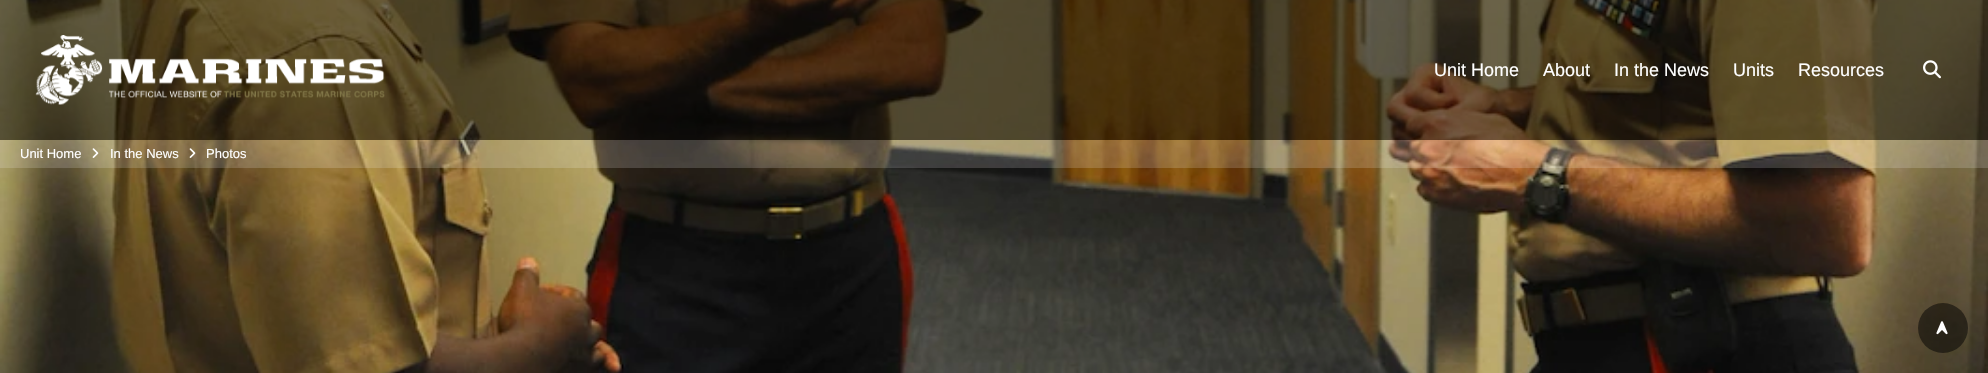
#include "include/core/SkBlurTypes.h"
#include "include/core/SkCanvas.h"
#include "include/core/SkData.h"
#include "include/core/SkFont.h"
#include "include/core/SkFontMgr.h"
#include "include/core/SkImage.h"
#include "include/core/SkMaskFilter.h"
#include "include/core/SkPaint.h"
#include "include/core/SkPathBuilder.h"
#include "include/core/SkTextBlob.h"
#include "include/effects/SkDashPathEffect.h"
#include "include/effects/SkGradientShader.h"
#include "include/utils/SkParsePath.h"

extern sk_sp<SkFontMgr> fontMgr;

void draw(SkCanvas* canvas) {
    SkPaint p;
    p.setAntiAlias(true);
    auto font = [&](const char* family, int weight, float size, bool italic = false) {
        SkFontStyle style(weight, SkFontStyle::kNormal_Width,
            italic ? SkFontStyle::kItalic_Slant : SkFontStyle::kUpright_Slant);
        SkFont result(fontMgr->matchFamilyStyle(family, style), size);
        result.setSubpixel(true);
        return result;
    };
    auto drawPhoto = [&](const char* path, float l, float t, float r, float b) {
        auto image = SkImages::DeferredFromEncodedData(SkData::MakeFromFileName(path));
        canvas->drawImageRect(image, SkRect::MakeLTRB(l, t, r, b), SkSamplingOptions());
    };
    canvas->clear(0xFFFFFFFF);
    drawPhoto("media/1.png", 0, 0, 1988, 373);
    p.setColor(0x80000000);
    canvas->drawRect(SkRect::MakeLTRB(0, 0, 1988, 140), p);
    drawPhoto("media/2.png", 35, 35, 385, 105);
    auto font1 = font("Liberation Sans", 400, 18);
    p.setColor(0xFFFFFFFF);
    {
        const struct { const char* s; float x, y; } items[] = {
            {"Unit Home", 1434, 76},
            {"About", 1543, 76},
            {"In the News", 1614, 76},
            {"Units", 1733, 76},
            {"Resources", 1798, 76},
        };
        for (auto [s, x, y] : items) {
            canvas->drawString(s, x, y, font1, p);
        }
    }
    drawPhoto("media/3.png", 1923, 60, 1941, 79);
    p.setColor(0x2BFFFFFF);
    canvas->drawRect(SkRect::MakeLTRB(0, 140, 1988, 168), p);
    auto font2 = font("Liberation Sans", 400, 13);
    p.setColor(0xFFFFFFFF);
    canvas->drawString("Unit Home", 20, 158, font2, p);
    drawPhoto("media/4.png", 92, 148, 99, 158);
    canvas->drawString("In the News", 110, 158, font2, p);
    drawPhoto("media/5.png", 189, 148, 196, 158);
    canvas->drawString("Photos", 206, 158, font2, p);
    p.setColor(0x80000000);
    canvas->drawCircle(1943, 328, 25, p);
    drawPhoto("media/6.png", 1936, 321, 1948, 335);
}
